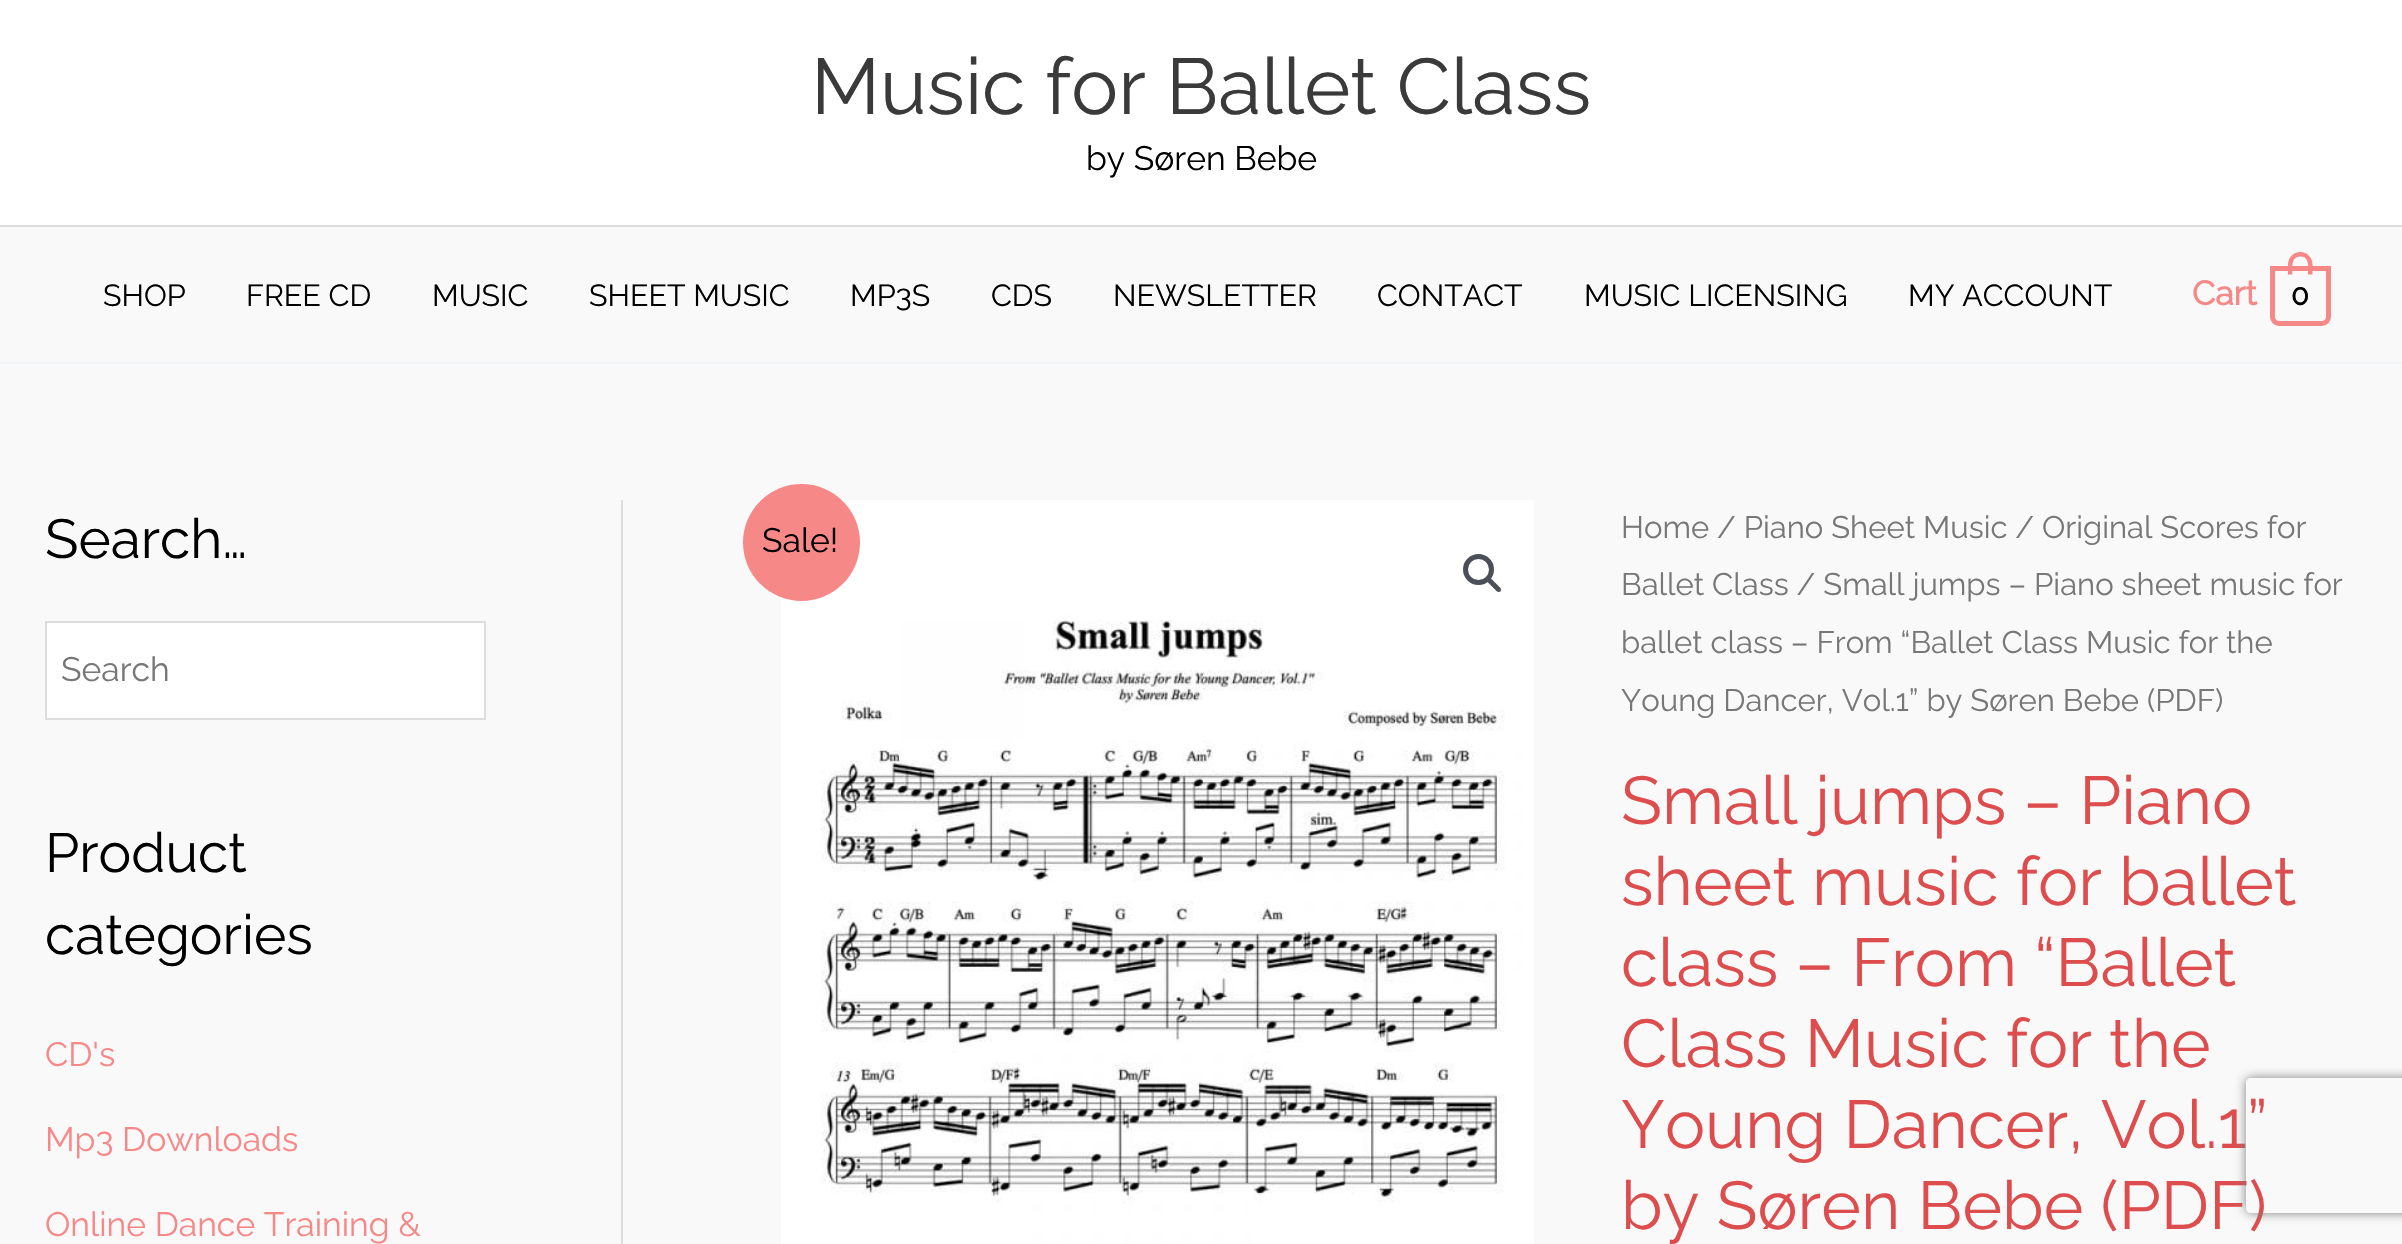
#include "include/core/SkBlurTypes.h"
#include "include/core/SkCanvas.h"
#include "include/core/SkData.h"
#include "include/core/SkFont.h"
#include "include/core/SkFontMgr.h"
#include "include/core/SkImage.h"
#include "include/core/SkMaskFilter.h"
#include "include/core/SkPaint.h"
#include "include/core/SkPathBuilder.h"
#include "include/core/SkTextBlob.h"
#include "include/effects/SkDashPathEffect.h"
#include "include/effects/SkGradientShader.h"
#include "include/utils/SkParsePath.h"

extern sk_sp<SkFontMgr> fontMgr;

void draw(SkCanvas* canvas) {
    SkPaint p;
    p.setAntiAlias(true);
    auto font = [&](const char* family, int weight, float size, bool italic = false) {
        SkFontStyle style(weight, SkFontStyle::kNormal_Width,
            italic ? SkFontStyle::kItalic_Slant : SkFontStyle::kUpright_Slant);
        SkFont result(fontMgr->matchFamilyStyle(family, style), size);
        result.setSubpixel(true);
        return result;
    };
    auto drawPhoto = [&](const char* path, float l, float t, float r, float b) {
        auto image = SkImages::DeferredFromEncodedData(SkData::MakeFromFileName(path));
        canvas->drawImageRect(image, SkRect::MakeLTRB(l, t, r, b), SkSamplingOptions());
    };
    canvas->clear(0xFFF9F9F9);
    p.setColor(0xFFFFFFFF);
    canvas->drawRect(SkRect::MakeLTRB(0, 0, 2402, 225), p);
    p.setColor(0xFFDDDDDD);
    canvas->drawRect(SkRect::MakeLTRB(0, 225, 2402, 227), p);
    auto font1 = font("Raleway", 100, 78.75f);
    p.setColor(0xFF3A3A3A);
    canvas->drawString("Music for Ballet Class", 811, 114, font1, p);
    auto font2 = font("Raleway", 100, 33.75f);
    p.setColor(0xFF000000);
    canvas->drawString("by Søren Bebe", 1086, 170, font2, p);
    p.setColor(0xFFF2F5F7);
    canvas->drawRect(SkRect::MakeLTRB(0, 362, 2402, 364), p);
    auto font3 = font("Raleway", 100, 30.4f);
    p.setColor(0xFF000000);
    {
        const struct { const char* s; float x, y; } items[] = {
            {"SHOP", 103, 306},
            {"FREE CD", 246, 306},
            {"MUSIC", 432, 306},
            {"SHEET MUSIC", 589, 306},
            {"MP3S", 850, 306},
            {"CDS", 991, 306},
            {"NEWSLETTER", 1113, 306},
            {"CONTACT", 1377, 306},
            {"MUSIC LICENSING", 1584, 306},
            {"MY ACCOUNT", 1908, 306},
        };
        for (auto [s, x, y] : items) {
            canvas->drawString(s, x, y, font3, p);
        }
    }
    auto font4 = font("Raleway", 700, 33.75f);
    p.setColor(0xFFF78888);
    canvas->drawString("Cart", 2192, 305, font4, p);
    p.setStyle(SkPaint::kStroke_Style);
    p.setStrokeWidth(5);
    canvas->drawPath(SkPathBuilder().moveTo(2272.5f, 268.5f).lineTo(2328.5f, 268.5f).lineTo(2328.5f, 317).cubicTo(2328.5f, 320.5f, 2325.5f, 323.5f, 2322, 323.5f).lineTo(2279, 323.5f).cubicTo(2275.5f, 323.5f, 2272.5f, 320.5f, 2272.5f, 317).close().detach(), p);
    p.setStyle(SkPaint::kFill_Style);
    canvas->drawPath(SkPathBuilder(SkPathFillType::kEvenOdd).moveTo(2300.5f, 252).cubicTo(2307, 252, 2312.5f, 257.5f, 2312.5f, 264.5f).lineTo(2312.5f, 274.5f).lineTo(2288, 274.5f).lineTo(2288, 264.5f).cubicTo(2288, 257.5f, 2293.5f, 252, 2300.5f, 252).close().moveTo(2300.5f, 256.5f).cubicTo(2310, 256.5f, 2308, 268, 2308, 274.5f).lineTo(2292.5f, 274.5f).cubicTo(2292.5f, 268, 2290.5f, 256.5f, 2300.5f, 256.5f).close().detach(), p);
    auto font5 = font("Raleway", 700, 29);
    p.setColor(0xFF000000);
    canvas->drawString("0", 2291, 305, font5, p);
    p.setColor(0xFFDDDDDD);
    canvas->drawRect(SkRect::MakeLTRB(621, 500, 623, 1244), p);
    auto font6 = font("Raleway", 100, 55);
    p.setColor(0xFF000000);
    canvas->drawString("Search…", 45, 558, font6, p);
    p.setColor(0xFFFFFFFF);
    canvas->drawRect(SkRect::MakeLTRB(46, 622, 485, 719), p);
    p.setStyle(SkPaint::kStroke_Style);
    p.setStrokeWidth(2);
    p.setColor(0xFFDDDDDD);
    canvas->drawRect(SkRect::MakeLTRB(46, 622, 485, 719), p);
    p.setStyle(SkPaint::kFill_Style);
    p.setColor(0xFF777777);
    canvas->drawString("Search", 61, 681, font2, p);
    p.setColor(0xFF000000);
    canvas->drawString("Product", 45, 872, font6, p);
    canvas->drawString("categories", 45, 954, font6, p);
    p.setColor(0xFFF78888);
    {
        const struct { const char* s; float x, y; } items[] = {
            {"CD's", 45, 1066},
            {"Mp3 Downloads", 45, 1151},
            {"Online Dance Training &", 45, 1236},
        };
        for (auto [s, x, y] : items) {
            canvas->drawString(s, x, y, font2, p);
        }
    }
    drawPhoto("media/1.png", 781, 500, 1534, 1244);
    p.setStyle(SkPaint::kStroke_Style);
    p.setStrokeWidth(5);
    p.setColor(0xFF4B4F58);
    canvas->drawCircle(1478.5f, 569.5f, 13, p);
    p.setStyle(SkPaint::kFill_Style);
    canvas->drawPath(SkPathBuilder().moveTo(1487.5f, 578.5f).cubicTo(1488.5f, 578, 1490, 578, 1491, 578.5f).lineTo(1500.5f, 588).cubicTo(1501, 589, 1501, 590.5f, 1500.5f, 591.5f).cubicTo(1499.5f, 592, 1498, 592, 1497, 591.5f).lineTo(1487.5f, 582).cubicTo(1487, 581, 1487, 579.5f, 1487.5f, 578.5f).close().detach(), p);
    auto font7 = font("Raleway", 100, 31.05f);
    p.setColor(0xFF777777);
    {
        const struct { const char* s; float x, y; } items[] = {
            {"Home / Piano Sheet Music / Original Scores for", 1621, 538},
            {"Ballet Class / Small jumps – Piano sheet music for", 1621, 595},
            {"ballet class – From “Ballet Class Music for the", 1621, 653},
            {"Young Dancer, Vol.1” by Søren Bebe (PDF)", 1621, 711},
        };
        for (auto [s, x, y] : items) {
            canvas->drawString(s, x, y, font7, p);
        }
    }
    auto font8 = font("Raleway", 100, 67.5f);
    p.setColor(0xFFDE4D4D);
    {
        const struct { const char* s; float x, y; } items[] = {
            {"Small jumps – Piano", 1621, 824},
            {"sheet music for ballet", 1621, 905},
            {"class – From “Ballet", 1621, 986},
            {"Class Music for the", 1621, 1067},
            {"Young Dancer, Vol.1”", 1621, 1148},
            {"by Søren Bebe (PDF)", 1621, 1229},
        };
        for (auto [s, x, y] : items) {
            canvas->drawString(s, x, y, font8, p);
        }
    }
    p.setColor(0xFFF78888);
    canvas->drawCircle(801.5f, 542.5f, 58.5f, p);
    p.setColor(0xFF000000);
    canvas->drawString("Sale!", 762, 552, font2, p);
    canvas->save();
    canvas->clipPath(SkPathBuilder(SkPathFillType::kEvenOdd).moveTo(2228, 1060).lineTo(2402, 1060).lineTo(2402, 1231).lineTo(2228, 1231).close().moveTo(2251, 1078).lineTo(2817, 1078).cubicTo(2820, 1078, 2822, 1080, 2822, 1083).lineTo(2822, 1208).cubicTo(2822, 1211, 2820, 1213, 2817, 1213).lineTo(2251, 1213).cubicTo(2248, 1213, 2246, 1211, 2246, 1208).lineTo(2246, 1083).cubicTo(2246, 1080, 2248, 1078, 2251, 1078).close().detach(), true);
    p.setColor(0xFF808080);
    p.setMaskFilter(SkMaskFilter::MakeBlur(kNormal_SkBlurStyle, 5.5f));
    canvas->drawRoundRect(SkRect::MakeLTRB(2246, 1078, 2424, 1213), 5, 5, p);
    p.setMaskFilter(nullptr);
    canvas->restore();
}
